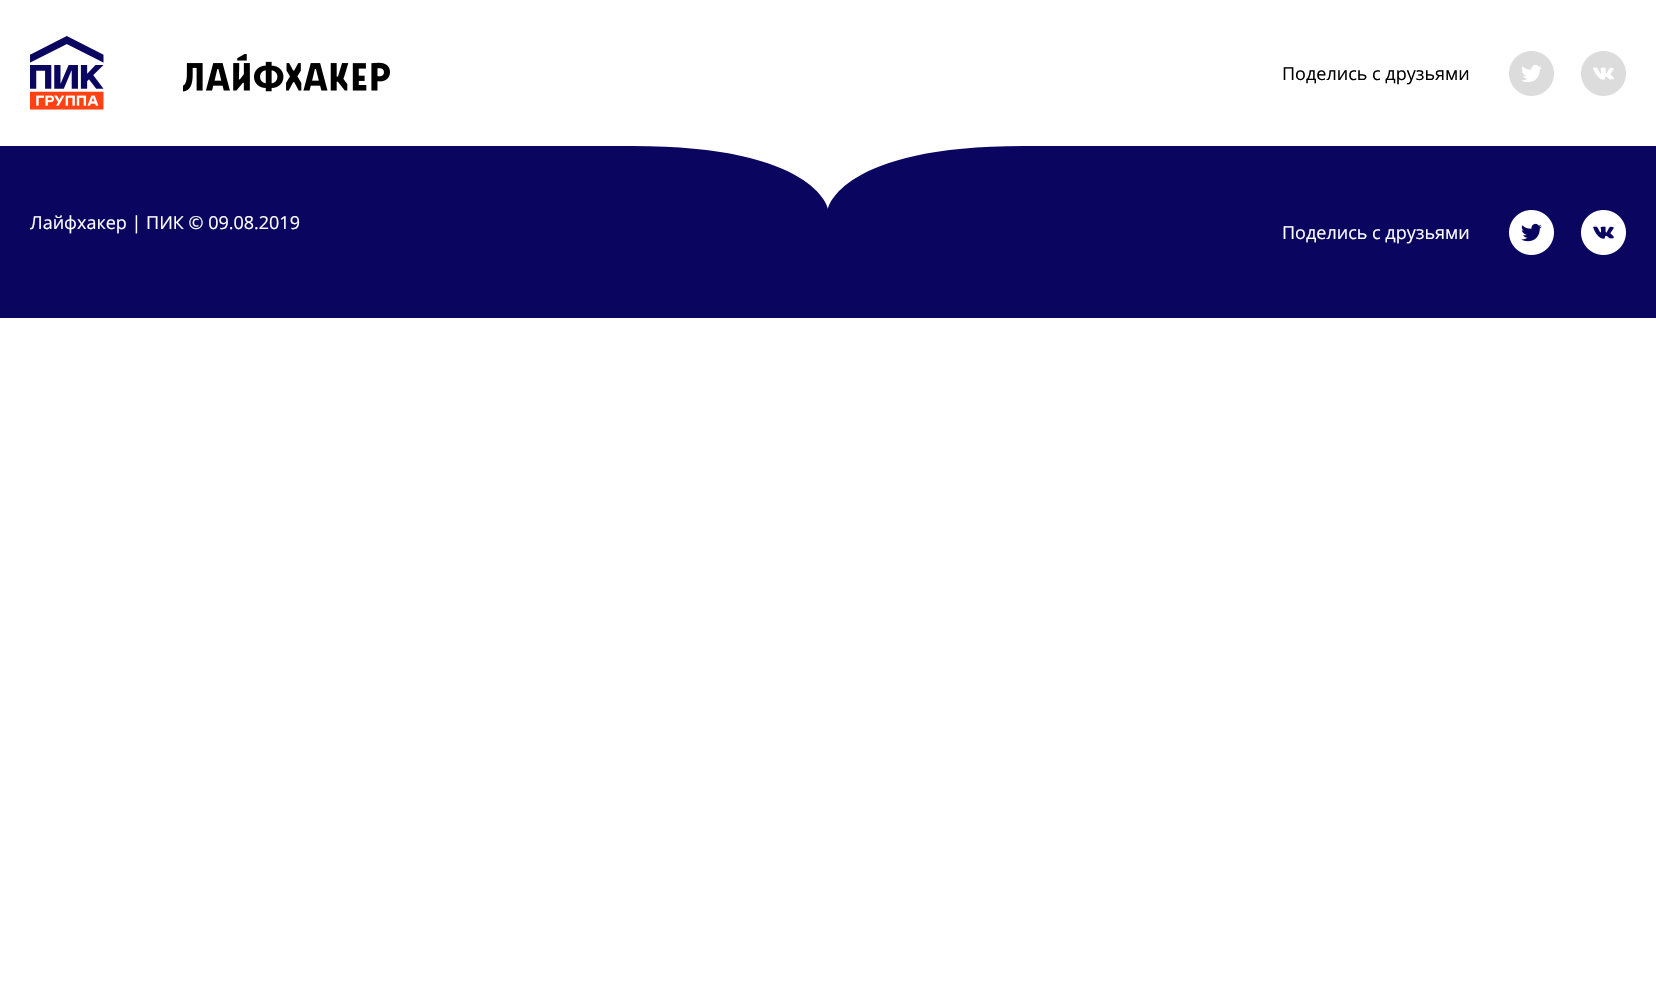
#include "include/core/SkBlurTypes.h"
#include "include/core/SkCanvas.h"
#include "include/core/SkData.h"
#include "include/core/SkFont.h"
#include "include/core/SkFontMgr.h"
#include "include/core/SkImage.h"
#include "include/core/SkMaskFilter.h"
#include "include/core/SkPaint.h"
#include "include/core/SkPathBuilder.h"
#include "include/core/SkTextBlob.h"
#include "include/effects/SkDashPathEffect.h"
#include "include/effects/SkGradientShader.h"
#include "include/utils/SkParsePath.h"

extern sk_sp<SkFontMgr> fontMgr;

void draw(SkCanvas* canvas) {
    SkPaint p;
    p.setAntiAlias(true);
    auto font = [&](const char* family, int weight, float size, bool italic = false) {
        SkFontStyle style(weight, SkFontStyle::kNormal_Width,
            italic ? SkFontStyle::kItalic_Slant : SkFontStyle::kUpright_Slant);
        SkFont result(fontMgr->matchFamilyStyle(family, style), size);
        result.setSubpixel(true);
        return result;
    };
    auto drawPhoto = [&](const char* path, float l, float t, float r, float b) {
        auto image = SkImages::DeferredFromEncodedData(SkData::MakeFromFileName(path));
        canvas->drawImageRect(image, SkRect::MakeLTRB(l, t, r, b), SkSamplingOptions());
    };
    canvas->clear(0xFFFFFFFF);
    drawPhoto("media/1.png", 30, 36, 104, 110);
    drawPhoto("media/2.png", 183, 54, 390, 92);
    auto font1 = font("Open Sans", 400, 18);
    p.setColor(0xFF000000);
    canvas->drawString("Поделись с друзьями", 1282, 80, font1, p);
    drawPhoto("media/3.png", 1509, 51, 1554, 96);
    drawPhoto("media/4.png", 1581, 51, 1626, 96);
    p.setColor(0xFF0A065F);
    canvas->drawRect(SkRect::MakeLTRB(0, 146, 1656, 318), p);
    p.setColor(0xFFFFFFFF);
    canvas->drawPath(SkPathBuilder(SkPathFillType::kEvenOdd).moveTo(1023, 146).lineTo(633, 146).cubicTo(815, 146, 828, 208, 828, 209).cubicTo(828, 208, 841, 146, 1023, 146).detach(), p);
    canvas->drawString("Лайфхакер | ПИК © 09.08.2019", 30, 229, font1, p);
    canvas->drawString("Поделись с друзьями", 1282, 239, font1, p);
    drawPhoto("media/5.png", 1509, 210, 1554, 255);
    drawPhoto("media/6.png", 1581, 210, 1626, 255);
}
